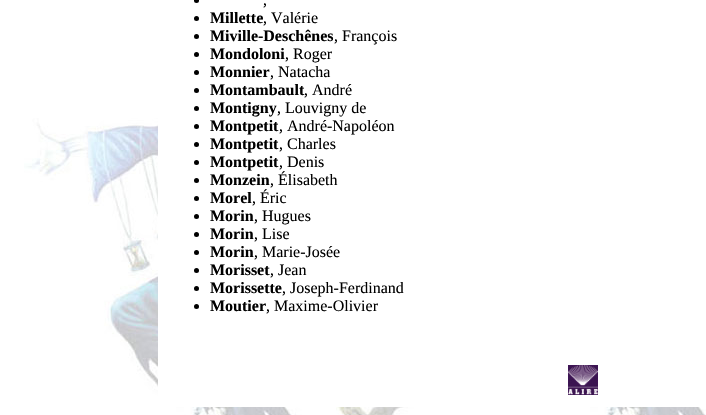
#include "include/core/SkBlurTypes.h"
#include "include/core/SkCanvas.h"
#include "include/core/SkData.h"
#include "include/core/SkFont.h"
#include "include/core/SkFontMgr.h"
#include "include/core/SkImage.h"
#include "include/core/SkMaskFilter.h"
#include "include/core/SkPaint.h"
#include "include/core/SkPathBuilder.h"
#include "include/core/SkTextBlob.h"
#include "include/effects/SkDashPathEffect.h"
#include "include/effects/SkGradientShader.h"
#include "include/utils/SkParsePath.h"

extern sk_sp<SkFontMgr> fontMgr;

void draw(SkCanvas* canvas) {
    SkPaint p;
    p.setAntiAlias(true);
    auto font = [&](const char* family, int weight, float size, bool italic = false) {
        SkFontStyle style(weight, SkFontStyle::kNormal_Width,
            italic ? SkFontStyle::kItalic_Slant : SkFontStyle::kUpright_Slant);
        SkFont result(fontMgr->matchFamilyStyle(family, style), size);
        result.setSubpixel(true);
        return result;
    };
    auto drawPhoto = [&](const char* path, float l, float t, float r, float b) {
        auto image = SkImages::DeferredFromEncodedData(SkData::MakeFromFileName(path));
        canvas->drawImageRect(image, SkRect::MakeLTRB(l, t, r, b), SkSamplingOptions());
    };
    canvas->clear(0xFFFFFFFF);
    drawPhoto("media/1.png", 24, 0, 706, 415);
    p.setColor(0xFFFFFFFF);
    canvas->drawRect(SkRect::MakeLTRB(158, 0, 706, 407), p);
    p.setColor(0xFF000000);
    canvas->drawCircle(196.5f, 0.5f, 2.5f, p);
    auto font1 = font("Liberation Serif", 400, 16);
    canvas->drawString(",", 263, 5, font1, p);
    canvas->drawCircle(196.5f, 18.5f, 2.5f, p);
    auto font2 = font("Liberation Serif", 700, 16);
    canvas->drawString("Millette", 210, 23, font2, p);
    canvas->drawString(", Valérie", 263, 23, font1, p);
    canvas->drawCircle(196.5f, 36.5f, 2.5f, p);
    canvas->drawString("Miville-Deschênes", 210, 41, font2, p);
    canvas->drawString(", François", 334, 41, font1, p);
    canvas->drawCircle(196.5f, 54.5f, 2.5f, p);
    canvas->drawString("Mondoloni", 210, 59, font2, p);
    canvas->drawString(", Roger", 285, 59, font1, p);
    canvas->drawCircle(196.5f, 72.5f, 2.5f, p);
    canvas->drawString("Monnier", 210, 77, font2, p);
    canvas->drawString(", Natacha", 270, 77, font1, p);
    canvas->drawCircle(196.5f, 90.5f, 2.5f, p);
    canvas->drawString("Montambault", 210, 95, font2, p);
    canvas->drawString(", André", 304, 95, font1, p);
    canvas->drawCircle(196.5f, 108.5f, 2.5f, p);
    canvas->drawString("Montigny", 210, 113, font2, p);
    canvas->drawString(", Louvigny de", 277, 113, font1, p);
    canvas->drawCircle(196.5f, 126.5f, 2.5f, p);
    canvas->drawString("Montpetit", 210, 131, font2, p);
    canvas->drawString(", André-Napoléon", 279, 131, font1, p);
    canvas->drawCircle(196.5f, 144.5f, 2.5f, p);
    canvas->drawString("Montpetit", 210, 149, font2, p);
    canvas->drawString(", Charles", 279, 149, font1, p);
    canvas->drawCircle(196.5f, 162.5f, 2.5f, p);
    canvas->drawString("Montpetit", 210, 167, font2, p);
    canvas->drawString(", Denis", 279, 167, font1, p);
    canvas->drawCircle(196.5f, 180.5f, 2.5f, p);
    canvas->drawString("Monzein", 210, 185, font2, p);
    canvas->drawString(", Élisabeth", 270, 185, font1, p);
    canvas->drawCircle(196.5f, 198.5f, 2.5f, p);
    canvas->drawString("Morel", 210, 203, font2, p);
    canvas->drawString(", Éric", 252, 203, font1, p);
    canvas->drawCircle(196.5f, 216.5f, 2.5f, p);
    canvas->drawString("Morin", 210, 221, font2, p);
    canvas->drawString(", Hugues", 254, 221, font1, p);
    canvas->drawCircle(196.5f, 234.5f, 2.5f, p);
    canvas->drawString("Morin", 210, 239, font2, p);
    canvas->drawString(", Lise", 254, 239, font1, p);
    canvas->drawCircle(196.5f, 252.5f, 2.5f, p);
    canvas->drawString("Morin", 210, 257, font2, p);
    canvas->drawString(", Marie-Josée", 254, 257, font1, p);
    canvas->drawCircle(196.5f, 270.5f, 2.5f, p);
    canvas->drawString("Morisset", 210, 275, font2, p);
    canvas->drawString(", Jean", 270, 275, font1, p);
    canvas->drawCircle(196.5f, 288.5f, 2.5f, p);
    canvas->drawString("Morissette", 210, 293, font2, p);
    canvas->drawString(", Joseph-Ferdinand", 282, 293, font1, p);
    canvas->drawCircle(196.5f, 306.5f, 2.5f, p);
    canvas->drawString("Moutier", 210, 311, font2, p);
    canvas->drawString(", Maxime-Olivier", 266, 311, font1, p);
    drawPhoto("media/2.png", 568, 365, 598, 395);
}
